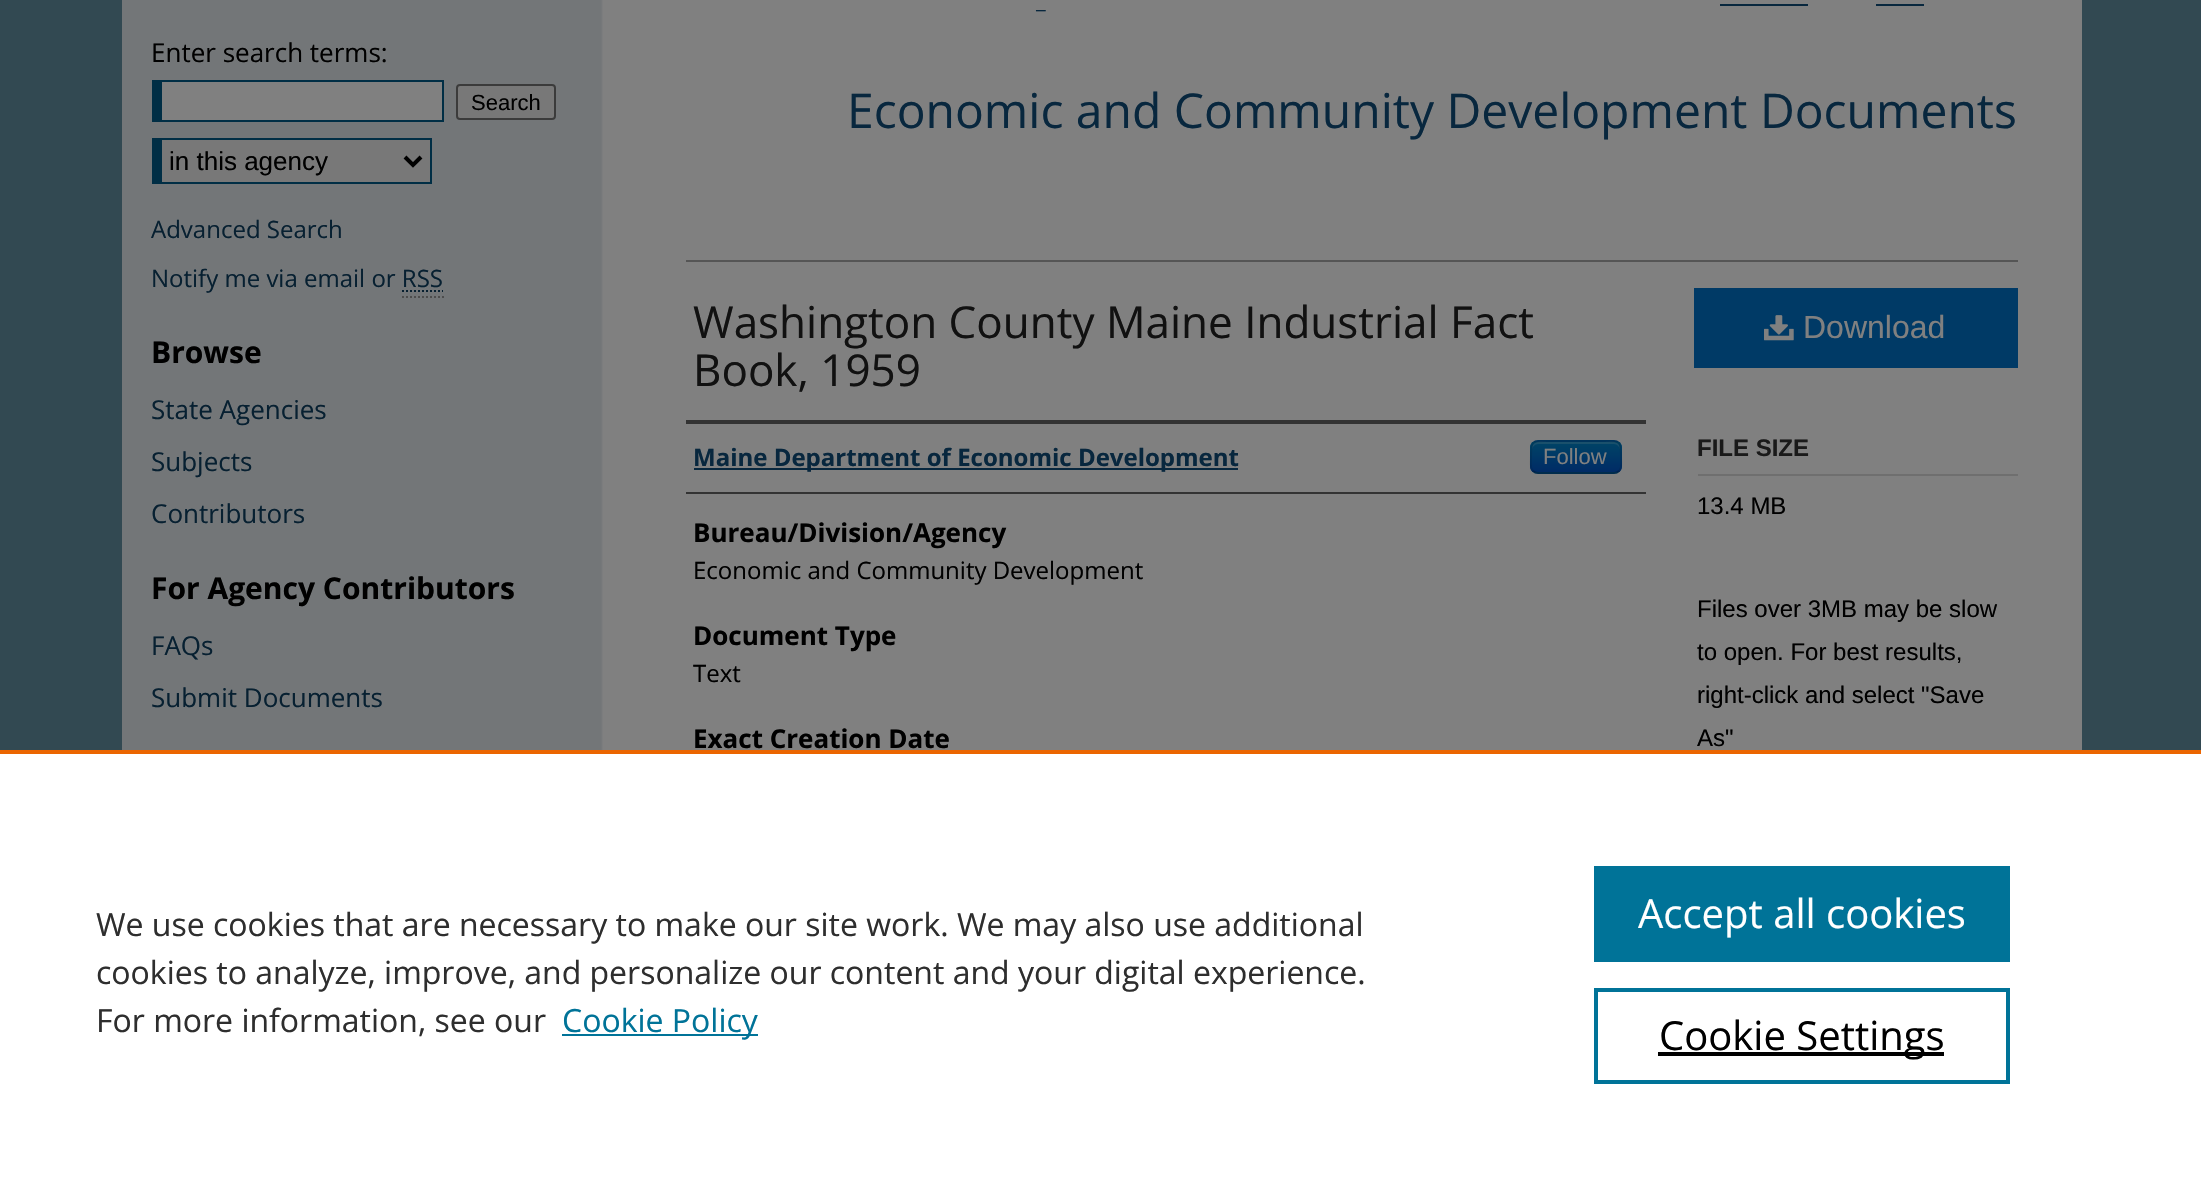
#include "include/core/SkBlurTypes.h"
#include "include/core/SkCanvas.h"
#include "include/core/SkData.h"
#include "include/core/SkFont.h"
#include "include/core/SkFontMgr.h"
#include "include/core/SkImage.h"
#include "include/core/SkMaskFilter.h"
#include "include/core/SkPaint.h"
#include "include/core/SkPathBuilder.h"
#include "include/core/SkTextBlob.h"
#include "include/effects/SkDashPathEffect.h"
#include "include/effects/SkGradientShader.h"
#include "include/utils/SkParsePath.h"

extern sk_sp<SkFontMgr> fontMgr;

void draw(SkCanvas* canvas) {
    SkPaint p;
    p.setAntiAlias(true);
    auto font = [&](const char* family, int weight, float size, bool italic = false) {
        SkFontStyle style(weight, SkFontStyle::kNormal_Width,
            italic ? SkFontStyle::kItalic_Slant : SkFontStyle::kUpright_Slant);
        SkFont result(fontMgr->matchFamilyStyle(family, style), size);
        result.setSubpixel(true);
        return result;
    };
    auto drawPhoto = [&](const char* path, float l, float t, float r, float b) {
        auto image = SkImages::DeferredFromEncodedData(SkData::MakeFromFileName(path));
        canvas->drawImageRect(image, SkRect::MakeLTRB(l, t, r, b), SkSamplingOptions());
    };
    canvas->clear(0xFF324952);
    drawPhoto("media/1.png", 122, 0, 2082, 750);
    auto font1 = font("Open Sans", 400, 26);
    p.setColor(0xFF000000);
    canvas->drawString("Enter search terms:", 151, 62, font1, p);
    {
        const struct { float l, t, r, b; SkColor color; } items[] = {
            {162, 82, 442, 120, 0xFF808080},
            {162, 80, 444, 82, 0xFF002E45},
            {442, 80, 444, 122, 0xFF002E45},
            {162, 120, 444, 122, 0xFF002E45},
            {152, 80, 162, 122, 0xFF002E45},
        };
        for (auto [l, t, r, b, color] : items) {
            p.setColor(color);
            canvas->drawRect(SkRect::MakeLTRB(l, t, r, b), p);
        }
    }
    p.setColor(0xFF787878);
    canvas->drawRoundRect(SkRect::MakeLTRB(457, 85, 555, 119), 3, 3, p);
    p.setStyle(SkPaint::kStroke_Style);
    p.setStrokeWidth(2);
    p.setColor(0xFF3B3B3B);
    canvas->drawRoundRect(SkRect::MakeLTRB(457, 85, 555, 119), 3, 3, p);
    auto font2 = font("Liberation Sans", 400, 22);
    p.setStyle(SkPaint::kFill_Style);
    p.setColor(0xFF000000);
    canvas->drawString("Search", 471, 110, font2, p);
    {
        const struct { float l, t, r, b; SkColor color; } items[] = {
            {162, 140, 430, 182, 0xFF787878},
            {162, 138, 432, 140, 0xFF002E45},
            {430, 138, 432, 184, 0xFF002E45},
            {162, 182, 432, 184, 0xFF002E45},
            {152, 138, 162, 184, 0xFF002E45},
        };
        for (auto [l, t, r, b, color] : items) {
            p.setColor(color);
            canvas->drawRect(SkRect::MakeLTRB(l, t, r, b), p);
        }
    }
    p.setStyle(SkPaint::kStroke_Style);
    p.setStrokeWidth(4);
    p.setColor(0xFF000000);
    canvas->drawPath(SkPathBuilder().moveTo(405, 157).lineTo(413, 165).lineTo(421, 157).detach(), p);
    auto font3 = font("Liberation Sans", 400, 26);
    p.setStyle(SkPaint::kFill_Style);
    canvas->drawString("in this agency", 169, 170, font3, p);
    auto font4 = font("Open Sans", 400, 24);
    p.setColor(0xFF072031);
    canvas->drawString("Advanced Search", 151, 238, font4, p);
    canvas->drawString("Notify me via email or RSS", 151, 287, font4, p);
    p.setStyle(SkPaint::kStroke_Style);
    p.setStrokeWidth(2);
    p.setPathEffect(SkDashPathEffect::Make({{2, 2}}, 0));
    canvas->drawPath(SkPathBuilder().moveTo(402, 291).lineTo(443, 291).detach(), p);
    p.setPathEffect(nullptr);
    p.setColor(0xFF4D4D4D);
    p.setPathEffect(SkDashPathEffect::Make({{2, 2}}, 0));
    canvas->drawPath(SkPathBuilder().moveTo(402, 297).lineTo(444, 297).detach(), p);
    p.setPathEffect(nullptr);
    auto font5 = font("Open Sans", 700, 30);
    p.setStyle(SkPaint::kFill_Style);
    p.setColor(0xFF000000);
    canvas->drawString("Browse", 151, 363, font5, p);
    p.setColor(0xFF072031);
    {
        const struct { const char* s; float x, y; } items[] = {
            {"State Agencies", 151, 419},
            {"Subjects", 151, 471},
            {"Contributors", 151, 523},
        };
        for (auto [s, x, y] : items) {
            canvas->drawString(s, x, y, font1, p);
        }
    }
    p.setColor(0xFF000000);
    canvas->drawString("For Agency Contributors", 151, 599, font5, p);
    p.setColor(0xFF072031);
    canvas->drawString("FAQs", 151, 655, font1, p);
    canvas->drawString("Submit Documents", 151, 707, font1, p);
    p.setColor(0xFF08273E);
    canvas->drawRect(SkRect::MakeLTRB(1720, 4, 1808, 6), p);
    canvas->drawRect(SkRect::MakeLTRB(1876, 4, 1924, 6), p);
    auto font6 = font("Open Sans", 400, 22);
    canvas->drawString("_", 1036, 8, font6, p);
    auto font7 = font("Open Sans", 400, 48);
    canvas->drawString("Economic and Community Development Documents", 847, 128, font7, p);
    p.setColor(0xFF555555);
    canvas->drawRect(SkRect::MakeLTRB(686, 260, 2018, 262), p);
    auto font8 = font("Open Sans", 400, 44);
    p.setColor(0xFF111111);
    canvas->drawString("Washington County Maine Industrial Fact", 693, 338, font8, p);
    canvas->drawString("Book, 1959", 693, 386, font8, p);
    {
        const struct { float l, t, r, b; SkColor color; } items[] = {
            {686, 420, 1646, 424, 0xFF333333},
            {686, 492, 1646, 494, 0xFF333333},
            {694, 468, 1238, 470, 0xFF08273E},
        };
        for (auto [l, t, r, b, color] : items) {
            p.setColor(color);
            canvas->drawRect(SkRect::MakeLTRB(l, t, r, b), p);
        }
    }
    auto font9 = font("Open Sans", 700, 24);
    canvas->drawString("Maine Department of Economic Development", 693, 466, font9, p);
    p.setColor(0xFF003A66);
    canvas->drawRoundRect(SkRect::MakeLTRB(1530, 440, 1622, 474), 8, 8, p);
    canvas->save();
    canvas->clipPath(SkPathBuilder().moveTo(1538, 440).lineTo(1614, 440).cubicTo(1618.5f, 440, 1622, 443.5f, 1622, 448).lineTo(1622, 466).cubicTo(1622, 470.5f, 1618.5f, 474, 1614, 474).lineTo(1538, 474).cubicTo(1533.5f, 474, 1530, 470.5f, 1530, 466).lineTo(1530, 448).cubicTo(1530, 443.5f, 1533.5f, 440, 1538, 440).close().detach(), true);
    {
        const SkColor colors[] = {0xFF004466, 0xFF002B66};
        const float stops[] = {0, 1};
        const SkPoint ends[] = {{1576, 442}, {1576, 472}};
        p.setShader(SkGradientShader::MakeLinear(ends, colors, stops, 2, SkTileMode::kClamp));
        p.setAlpha(255);
    }
    canvas->drawRect(SkRect::MakeLTRB(1530, 442, 1622, 472), p);
    canvas->restore();
    p.setShader(nullptr);
    p.setColor(0x33808080);
    canvas->drawPath(SkPathBuilder().moveTo(1538, 444).lineTo(1614, 444).cubicTo(1617, 444, 1620, 447, 1620, 450).cubicTo(1620, 439, 1610, 442, 1601, 442).lineTo(1551, 442).cubicTo(1542, 442, 1532, 439, 1532, 450).cubicTo(1532, 447, 1535, 444, 1538, 444).close().detach(), p);
    p.setStyle(SkPaint::kStroke_Style);
    p.setColor(0x40000000);
    canvas->drawPath(SkPathBuilder().moveTo(1619, 471).cubicTo(1617.5f, 472.5f, 1616, 473, 1614, 473).lineTo(1538, 473).cubicTo(1536, 473, 1534.5f, 472.5f, 1533, 471).detach(), p);
    p.setColor(0x1A000000);
    canvas->drawPath(SkPathBuilder().moveTo(1533, 471).cubicTo(1529.5f, 467.5f, 1531, 461.5f, 1531, 457).cubicTo(1531, 439, 1532, 441, 1550.5f, 441).lineTo(1601.5f, 441).cubicTo(1620, 441, 1621, 439, 1621, 457).cubicTo(1621, 461.5f, 1622.5f, 467.5f, 1619, 471).detach(), p);
    p.setStyle(SkPaint::kFill_Style);
    p.setColor(0xFF808080);
    canvas->drawString("Follow", 1543, 464, font2, p);
    auto font10 = font("Open Sans", 700, 26);
    p.setColor(0xFF000000);
    canvas->drawString("Bureau/Division/Agency", 693, 542, font10, p);
    canvas->drawString("Economic and Community Development", 693, 579, font4, p);
    canvas->drawString("Document Type", 693, 645, font10, p);
    canvas->drawString("Text", 693, 682, font4, p);
    canvas->drawString("Exact Creation Date", 693, 748, font10, p);
    p.setColor(0xFF003A66);
    canvas->drawRect(SkRect::MakeLTRB(1694, 288, 2018, 368), p);
    drawPhoto("media/2.png", 1764, 315, 1794, 341);
    auto font11 = font("Liberation Sans", 400, 32);
    p.setColor(0xFF808080);
    canvas->drawString("Download", 1803, 338, font11, p);
    p.setColor(0xFF6F6F6F);
    canvas->drawRect(SkRect::MakeLTRB(1698, 474, 2018, 476), p);
    auto font12 = font("Liberation Sans", 700, 24);
    p.setColor(0xFF1A1A1A);
    canvas->drawString("FILE SIZE", 1697, 456, font12, p);
    auto font13 = font("Liberation Sans", 400, 24);
    p.setColor(0xFF000000);
    {
        const struct { const char* s; float x, y; } items[] = {
            {"13.4 MB", 1697, 514},
            {"Files over 3MB may be slow", 1697, 617},
            {"to open. For best results,", 1697, 660},
            {"right-click and select \"Save", 1697, 703},
            {"As\"", 1697, 746},
        };
        for (auto [s, x, y] : items) {
            canvas->drawString(s, x, y, font13, p);
        }
    }
    p.setColor(0xFFFFFFFF);
    canvas->drawRect(SkRect::MakeLTRB(0, 754, 2201, 1190), p);
    p.setColor(0xFFEB6500);
    canvas->drawRect(SkRect::MakeLTRB(0, 750, 2201, 754), p);
    auto font14 = font("Open Sans", 400, 32);
    p.setColor(0xFF2E2E2E);
    {
        const struct { const char* s; float x, y; } items[] = {
            {"We use cookies that are necessary to make our site work. We may also use additional", 96, 936},
            {"cookies to analyze, improve, and personalize our content and your digital experience.", 96, 984},
            {"For more information, see our", 96, 1032},
        };
        for (auto [s, x, y] : items) {
            canvas->drawString(s, x, y, font14, p);
        }
    }
    p.setColor(0xFF007398);
    canvas->drawRect(SkRect::MakeLTRB(562, 1034, 758, 1036), p);
    canvas->drawString("Cookie Policy", 562, 1032, font14, p);
    canvas->drawRect(SkRect::MakeLTRB(1594, 866, 2010, 962), p);
    auto font15 = font("Open Sans", 400, 40);
    p.setColor(0xFFFFFFFF);
    canvas->drawString("Accept all cookies", 1638, 928, font15, p);
    p.setStyle(SkPaint::kStroke_Style);
    p.setStrokeWidth(4);
    p.setColor(0xFF007398);
    canvas->drawRect(SkRect::MakeLTRB(1596, 990, 2008, 1082), p);
    p.setStyle(SkPaint::kFill_Style);
    p.setColor(0xFF000000);
    canvas->drawRect(SkRect::MakeLTRB(1658, 1052, 1944, 1056), p);
    canvas->drawString("Cookie Settings", 1659, 1050, font15, p);
}
